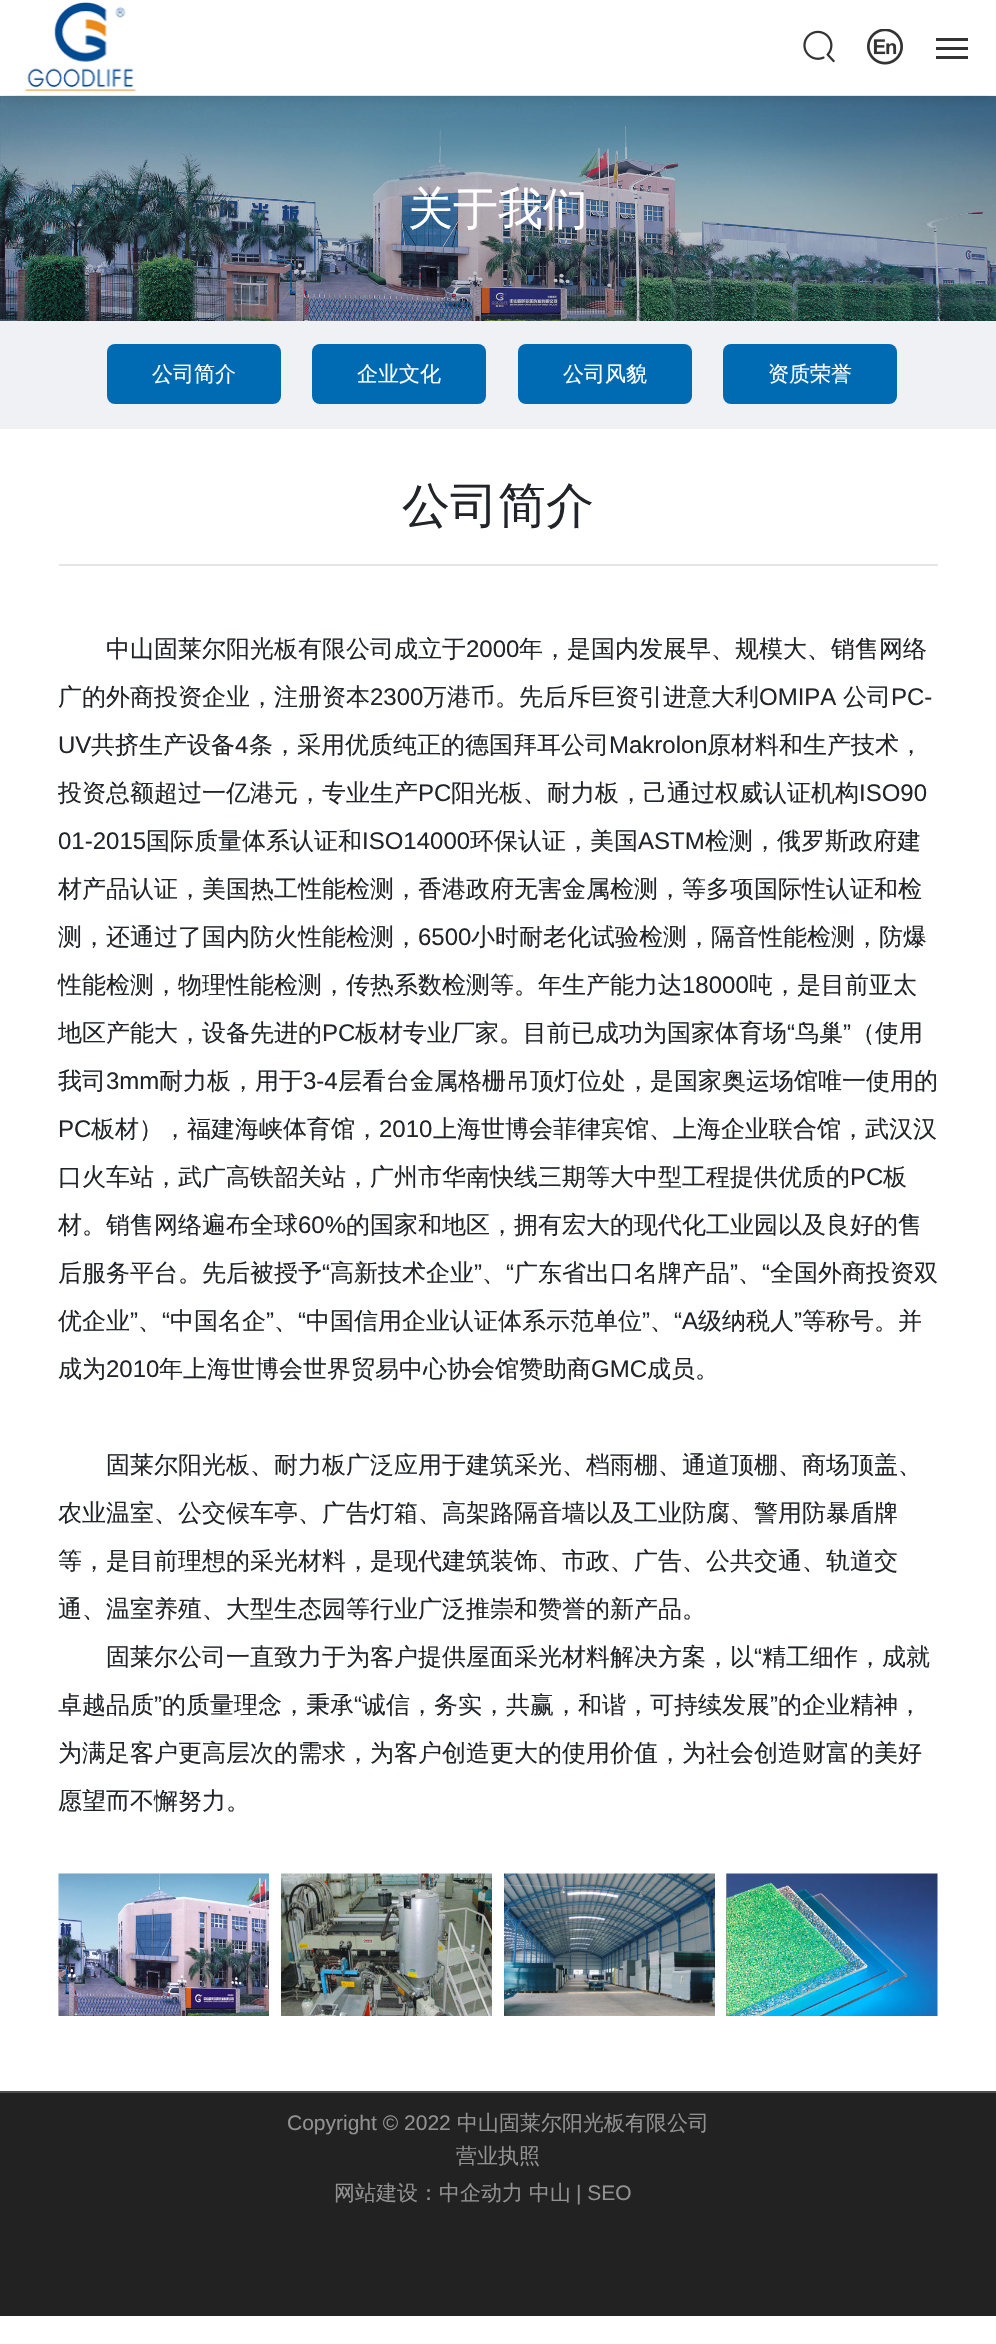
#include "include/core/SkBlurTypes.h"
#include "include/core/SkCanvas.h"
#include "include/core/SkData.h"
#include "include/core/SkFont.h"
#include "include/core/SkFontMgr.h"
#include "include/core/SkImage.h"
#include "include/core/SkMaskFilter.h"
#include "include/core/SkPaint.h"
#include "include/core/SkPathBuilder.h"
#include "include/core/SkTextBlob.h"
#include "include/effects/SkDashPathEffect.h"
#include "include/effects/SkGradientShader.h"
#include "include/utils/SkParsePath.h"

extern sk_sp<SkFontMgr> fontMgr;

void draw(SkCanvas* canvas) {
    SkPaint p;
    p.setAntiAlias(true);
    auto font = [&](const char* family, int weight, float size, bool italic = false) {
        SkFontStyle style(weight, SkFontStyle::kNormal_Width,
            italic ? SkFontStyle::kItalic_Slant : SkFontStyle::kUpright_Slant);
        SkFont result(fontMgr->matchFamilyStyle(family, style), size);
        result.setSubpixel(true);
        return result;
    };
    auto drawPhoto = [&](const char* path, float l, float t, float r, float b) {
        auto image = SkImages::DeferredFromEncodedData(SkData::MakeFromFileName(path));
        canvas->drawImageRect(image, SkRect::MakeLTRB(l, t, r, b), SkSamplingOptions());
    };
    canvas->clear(0xFFFFFFFF);
    drawPhoto("media/4.png", 0, 96, 996, 321);
    p.setColor(0x33000000);
    p.setMaskFilter(SkMaskFilter::MakeBlur(kNormal_SkBlurStyle, 11));
    canvas->drawRect(SkRect::MakeLTRB(0, 0, 996, 95), p);
    p.setMaskFilter(nullptr);
    p.setColor(0xFFFFFFFF);
    canvas->drawRect(SkRect::MakeLTRB(0, 0, 996, 95), p);
    drawPhoto("media/1.png", 25, 2, 136, 91);
    drawPhoto("media/2.png", 803, 30, 835, 63);
    drawPhoto("media/3.png", 867, 29, 903, 65);
    {
        const struct { float l, t, r, b; SkColor color; } items[] = {
            {936, 38, 968, 41, 0xFF333333},
            {936, 47, 968, 50, 0xFF333333},
            {936, 56, 968, 59, 0xFF333333},
        };
        for (auto [l, t, r, b, color] : items) {
            p.setColor(color);
            canvas->drawRect(SkRect::MakeLTRB(l, t, r, b), p);
        }
    }
    auto font1 = font("WenQuanYi Zen Hei", 500, 45);
    p.setColor(0xFFFFFFFF);
    canvas->drawString("关于我们", 408, 224, font1, p);
    p.setColor(0xFFEFF1F5);
    canvas->drawRect(SkRect::MakeLTRB(0, 321, 996, 429), p);
    p.setColor(0xFF006AB2);
    canvas->drawRoundRect(SkRect::MakeLTRB(107, 344, 281, 404), 8, 8, p);
    auto font2 = font("WenQuanYi Zen Hei", 500, 21);
    p.setColor(0xFFFFFFFF);
    canvas->drawString("公司简介", 152, 381, font2, p);
    p.setColor(0xFF006AB2);
    canvas->drawRoundRect(SkRect::MakeLTRB(312, 344, 486, 404), 8, 8, p);
    p.setColor(0xFFFFFFFF);
    canvas->drawString("企业文化", 357, 381, font2, p);
    p.setColor(0xFF006AB2);
    canvas->drawRoundRect(SkRect::MakeLTRB(518, 344, 692, 404), 8, 8, p);
    p.setColor(0xFFFFFFFF);
    canvas->drawString("公司风貌", 563, 381, font2, p);
    p.setColor(0xFF006AB2);
    canvas->drawRoundRect(SkRect::MakeLTRB(723, 344, 897, 404), 8, 8, p);
    p.setColor(0xFFFFFFFF);
    canvas->drawString("资质荣誉", 768, 381, font2, p);
    auto font3 = font("WenQuanYi Zen Hei", 500, 48);
    p.setColor(0xFF212529);
    canvas->drawString("公司简介", 402, 522, font3, p);
    p.setColor(0xFFE6E6E6);
    canvas->drawRect(SkRect::MakeLTRB(59, 564, 938, 566), p);
    auto font4 = font("WenQuanYi Zen Hei", 500, 24);
    p.setColor(0xFF212529);
    canvas->drawString("中山固莱尔阳光板有限公司成立于", 106, 657, font4, p);
    auto font5 = font("Liberation Sans", 400, 24);
    canvas->drawString("2000", 466, 657, font5, p);
    canvas->drawString("年，是国内发展早、规模大、销售网络", 519, 657, font4, p);
    canvas->drawString("广的外商投资企业，注册资本", 58, 705, font4, p);
    canvas->drawString("2300", 370, 705, font5, p);
    canvas->drawString("万港币。先后斥巨资引进意大利", 423, 705, font4, p);
    canvas->drawString("OMIPA", 759, 705, font5, p);
    canvas->drawString("公司", 843, 705, font4, p);
    canvas->drawString("PC-", 891, 705, font5, p);
    canvas->drawString("UV", 58, 753, font5, p);
    canvas->drawString("共挤生产设备", 91, 753, font4, p);
    canvas->drawString("4", 235, 753, font5, p);
    canvas->drawString("条，采用优质纯正的德国拜耳公司", 249, 753, font4, p);
    canvas->drawString("Makrolon", 609, 753, font5, p);
    canvas->drawString("原材料和生产技术，", 707, 753, font4, p);
    canvas->drawString("投资总额超过一亿港元，专业生产", 58, 801, font4, p);
    canvas->drawString("PC", 418, 801, font5, p);
    canvas->drawString("阳光板、耐力板，己通过权威认证机构", 451, 801, font4, p);
    canvas->drawString("ISO90", 859, 801, font5, p);
    canvas->drawString("01-2015", 58, 849, font5, p);
    canvas->drawString("国际质量体系认证和", 146, 849, font4, p);
    canvas->drawString("ISO14000", 362, 849, font5, p);
    canvas->drawString("环保认证，美国", 470, 849, font4, p);
    canvas->drawString("ASTM", 638, 849, font5, p);
    {
        const struct { const char* s; float x, y; } items[] = {
            {"检测，俄罗斯政府建", 705, 849},
            {"材产品认证，美国热工性能检测，香港政府无害金属检测，等多项国际性认证和检", 58, 897},
            {"测，还通过了国内防火性能检测，", 58, 945},
        };
        for (auto [s, x, y] : items) {
            canvas->drawString(s, x, y, font4, p);
        }
    }
    canvas->drawString("6500", 418, 945, font5, p);
    canvas->drawString("小时耐老化试验检测，隔音性能检测，防爆", 471, 945, font4, p);
    canvas->drawString("性能检测，物理性能检测，传热系数检测等。年生产能力达", 58, 993, font4, p);
    canvas->drawString("18000", 682, 993, font5, p);
    canvas->drawString("吨，是目前亚太", 749, 993, font4, p);
    canvas->drawString("地区产能大，设备先进的", 58, 1041, font4, p);
    canvas->drawString("PC", 322, 1041, font5, p);
    canvas->drawString("板材专业厂家。目前已成功为国家体育场", 355, 1041, font4, p);
    canvas->drawString("“", 787, 1041, font5, p);
    canvas->drawString("鸟巢", 795, 1041, font4, p);
    canvas->drawString("”", 843, 1041, font5, p);
    canvas->drawString("（使用", 851, 1041, font4, p);
    canvas->drawString("我司", 58, 1089, font4, p);
    canvas->drawString("3mm", 106, 1089, font5, p);
    canvas->drawString("耐力板，用于", 159, 1089, font4, p);
    canvas->drawString("3-4", 303, 1089, font5, p);
    canvas->drawString("层看台金属格栅吊顶灯位处，是国家奥运场馆唯一使用的", 338, 1089, font4, p);
    canvas->drawString("PC", 58, 1137, font5, p);
    canvas->drawString("板材），福建海峡体育馆，", 91, 1137, font4, p);
    canvas->drawString("2010", 379, 1137, font5, p);
    canvas->drawString("上海世博会菲律宾馆、上海企业联合馆，武汉汉", 433, 1137, font4, p);
    canvas->drawString("口火车站，武广高铁韶关站，广州市华南快线三期等大中型工程提供优质的", 58, 1185, font4, p);
    canvas->drawString("PC", 850, 1185, font5, p);
    canvas->drawString("板", 883, 1185, font4, p);
    canvas->drawString("材。销售网络遍布全球", 58, 1233, font4, p);
    canvas->drawString("60%", 298, 1233, font5, p);
    canvas->drawString("的国家和地区，拥有宏大的现代化工业园以及良好的售", 346, 1233, font4, p);
    canvas->drawString("后服务平台。先后被授予", 58, 1281, font4, p);
    canvas->drawString("“", 322, 1281, font5, p);
    canvas->drawString("高新技术企业", 330, 1281, font4, p);
    canvas->drawString("”", 474, 1281, font5, p);
    canvas->drawString("“", 506, 1281, font5, p);
    canvas->drawString("广东省出口名牌产品", 514, 1281, font4, p);
    canvas->drawString("”", 730, 1281, font5, p);
    canvas->drawString("“", 762, 1281, font5, p);
    {
        const struct { const char* s; float x, y; } items[] = {
            {"全国外商投资双", 770, 1281},
            {"、", 482, 1281},
            {"、", 738, 1281},
            {"优企业", 58, 1329},
        };
        for (auto [s, x, y] : items) {
            canvas->drawString(s, x, y, font4, p);
        }
    }
    canvas->drawString("”", 130, 1329, font5, p);
    canvas->drawString("“", 162, 1329, font5, p);
    canvas->drawString("中国名企", 170, 1329, font4, p);
    canvas->drawString("”", 266, 1329, font5, p);
    canvas->drawString("“", 298, 1329, font5, p);
    canvas->drawString("中国信用企业认证体系示范单位", 306, 1329, font4, p);
    canvas->drawString("”", 642, 1329, font5, p);
    canvas->drawString("“A", 674, 1329, font5, p);
    canvas->drawString("级纳税人", 698, 1329, font4, p);
    canvas->drawString("”", 794, 1329, font5, p);
    {
        const struct { const char* s; float x, y; } items[] = {
            {"等称号。并", 802, 1329},
            {"、", 138, 1329},
            {"、", 274, 1329},
            {"、", 650, 1329},
            {"成为", 58, 1377},
        };
        for (auto [s, x, y] : items) {
            canvas->drawString(s, x, y, font4, p);
        }
    }
    canvas->drawString("2010", 106, 1377, font5, p);
    canvas->drawString("年上海世博会世界贸易中心协会馆赞助商", 159, 1377, font4, p);
    canvas->drawString("GMC", 591, 1377, font5, p);
    {
        const struct { const char* s; float x, y; } items[] = {
            {"成员。", 647, 1377},
            {"固莱尔阳光板、耐力板广泛应用于建筑采光、档雨棚、通道顶棚、商场顶盖、", 106, 1473},
            {"农业温室、公交候车亭、广告灯箱、高架路隔音墙以及工业防腐、警用防暴盾牌", 58, 1521},
            {"等，是目前理想的采光材料，是现代建筑装饰、市政、广告、公共交通、轨道交", 58, 1569},
            {"通、温室养殖、大型生态园等行业广泛推崇和赞誉的新产品。", 58, 1617},
            {"固莱尔公司一直致力于为客户提供屋面采光材料解决方案，以", 106, 1665},
        };
        for (auto [s, x, y] : items) {
            canvas->drawString(s, x, y, font4, p);
        }
    }
    canvas->drawString("“", 754, 1665, font5, p);
    canvas->drawString("精工细作，成就", 762, 1665, font4, p);
    canvas->drawString("卓越品质", 58, 1713, font4, p);
    canvas->drawString("”", 154, 1713, font5, p);
    canvas->drawString("的质量理念，秉承", 162, 1713, font4, p);
    canvas->drawString("“", 354, 1713, font5, p);
    canvas->drawString("诚信，务实，共赢，和谐，可持续发展", 362, 1713, font4, p);
    canvas->drawString("”", 770, 1713, font5, p);
    {
        const struct { const char* s; float x, y; } items[] = {
            {"的企业精神，", 778, 1713},
            {"为满足客户更高层次的需求，为客户创造更大的使用价值，为社会创造财富的美好", 58, 1761},
            {"愿望而不懈努力。", 58, 1809},
        };
        for (auto [s, x, y] : items) {
            canvas->drawString(s, x, y, font4, p);
        }
    }
    drawPhoto("media/5.png", 58, 1873, 938, 2016);
    p.setColor(0xFF222222);
    canvas->drawRect(SkRect::MakeLTRB(0, 2093, 996, 2316), p);
    p.setColor(0xFF4E4E4E);
    canvas->drawRect(SkRect::MakeLTRB(0, 2091, 996, 2093), p);
    auto font6 = font("Liberation Sans", 400, 21);
    p.setColor(0xFF919191);
    canvas->drawString("Copyright © 2022", 287, 2130, font6, p);
    {
        const struct { const char* s; float x, y; } items[] = {
            {"中山固莱尔阳光板有限公司", 457, 2130},
            {"营业执照", 456, 2163},
            {"网站建设：中企动力", 334, 2200},
            {"中山", 529, 2200},
        };
        for (auto [s, x, y] : items) {
            canvas->drawString(s, x, y, font2, p);
        }
    }
    canvas->drawString("| SEO", 576, 2200, font6, p);
}
